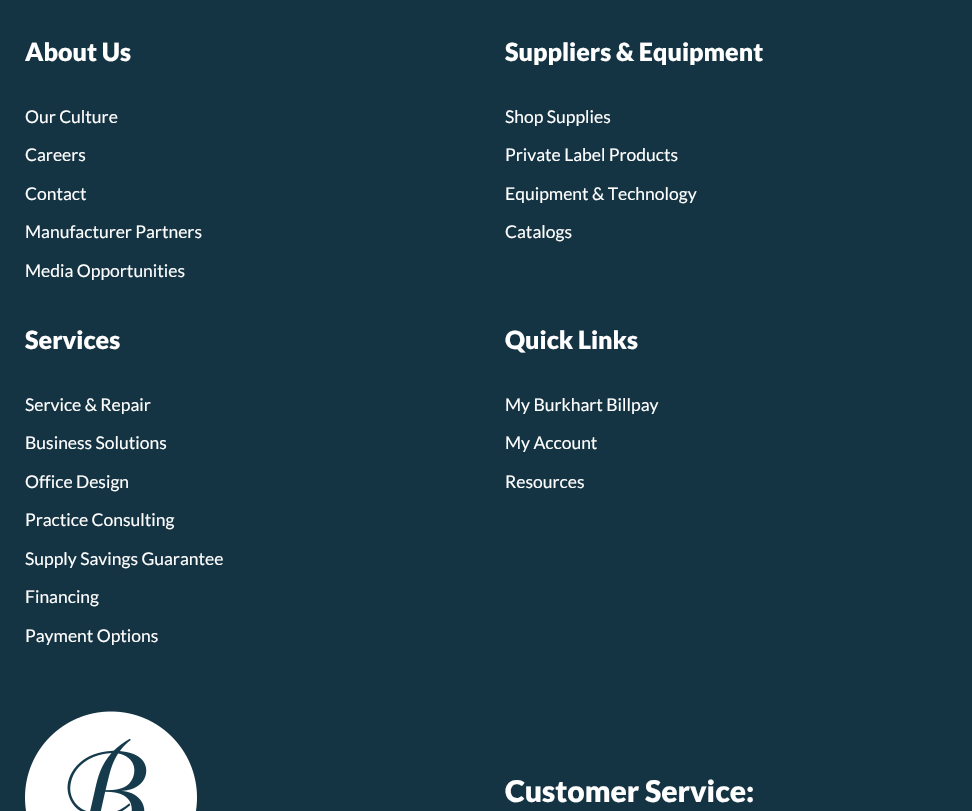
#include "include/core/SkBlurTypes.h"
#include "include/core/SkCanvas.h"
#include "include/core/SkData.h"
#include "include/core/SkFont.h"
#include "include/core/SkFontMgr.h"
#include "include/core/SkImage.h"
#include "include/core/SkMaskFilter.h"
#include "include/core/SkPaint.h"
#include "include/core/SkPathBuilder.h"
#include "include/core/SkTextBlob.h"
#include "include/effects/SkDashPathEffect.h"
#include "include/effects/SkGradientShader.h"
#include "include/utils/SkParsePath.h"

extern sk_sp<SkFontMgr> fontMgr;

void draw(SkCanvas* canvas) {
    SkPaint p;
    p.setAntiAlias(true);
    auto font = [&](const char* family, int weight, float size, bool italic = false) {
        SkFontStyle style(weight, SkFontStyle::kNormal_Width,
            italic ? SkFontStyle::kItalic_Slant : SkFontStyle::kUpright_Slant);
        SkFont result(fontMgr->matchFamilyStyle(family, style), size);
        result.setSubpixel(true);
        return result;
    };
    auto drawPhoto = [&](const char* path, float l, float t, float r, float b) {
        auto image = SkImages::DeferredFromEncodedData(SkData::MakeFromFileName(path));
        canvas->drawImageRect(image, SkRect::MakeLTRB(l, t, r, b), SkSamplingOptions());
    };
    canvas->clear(0xFF153443);
    auto font1 = font("Lato", 900, 25);
    p.setColor(0xFFFFFFFF);
    canvas->drawString("About Us", 25, 61, font1, p);
    auto font2 = font("Lato", 400, 17.5f);
    {
        const struct { const char* s; float x, y; } items[] = {
            {"Our Culture", 25, 123},
            {"Careers", 25, 161},
            {"Contact", 25, 200},
            {"Manufacturer Partners", 25, 238},
            {"Media Opportunities", 25, 277},
        };
        for (auto [s, x, y] : items) {
            canvas->drawString(s, x, y, font2, p);
        }
    }
    canvas->drawString("Suppliers & Equipment", 505, 61, font1, p);
    {
        const struct { const char* s; float x, y; } items[] = {
            {"Shop Supplies", 505, 123},
            {"Private Label Products", 505, 161},
            {"Equipment & Technology", 505, 200},
            {"Catalogs", 505, 238},
        };
        for (auto [s, x, y] : items) {
            canvas->drawString(s, x, y, font2, p);
        }
    }
    canvas->drawString("Services", 25, 349, font1, p);
    {
        const struct { const char* s; float x, y; } items[] = {
            {"Service & Repair", 25, 411},
            {"Business Solutions", 25, 449},
            {"Office Design", 25, 488},
            {"Practice Consulting", 25, 526},
            {"Supply Savings Guarantee", 25, 565},
            {"Financing", 25, 603},
            {"Payment Options", 25, 642},
        };
        for (auto [s, x, y] : items) {
            canvas->drawString(s, x, y, font2, p);
        }
    }
    canvas->drawString("Quick Links", 505, 349, font1, p);
    {
        const struct { const char* s; float x, y; } items[] = {
            {"My Burkhart Billpay", 505, 411},
            {"My Account", 505, 449},
            {"Resources", 505, 488},
        };
        for (auto [s, x, y] : items) {
            canvas->drawString(s, x, y, font2, p);
        }
    }
    drawPhoto("media/1.png", 25, 711, 197, 811);
    auto font3 = font("Lato", 900, 30);
    canvas->drawString("Customer Service:", 505, 802, font3, p);
}
